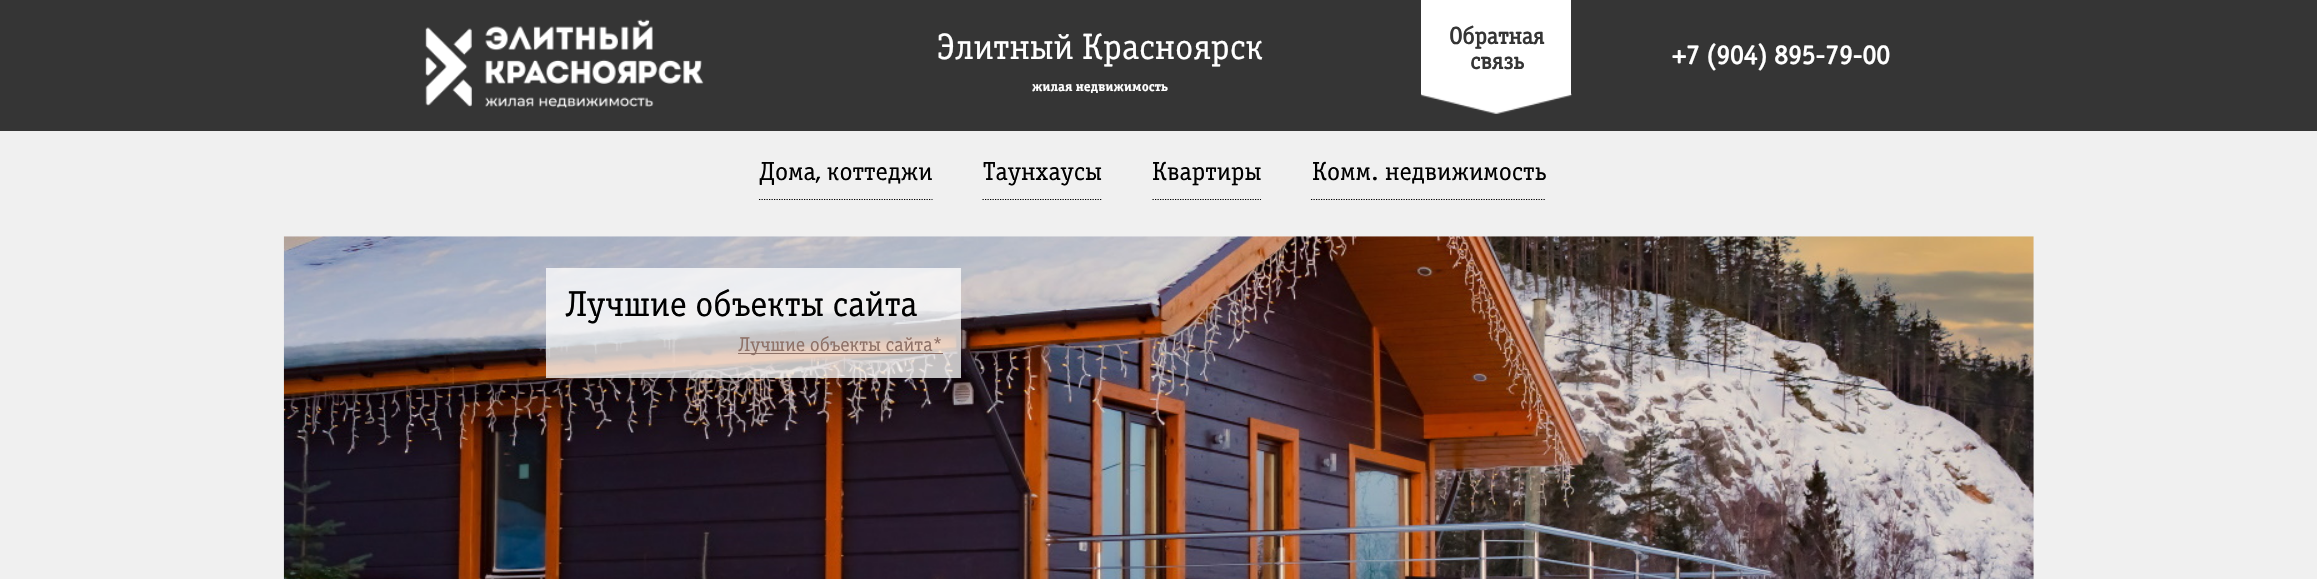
#include "include/core/SkBlurTypes.h"
#include "include/core/SkCanvas.h"
#include "include/core/SkData.h"
#include "include/core/SkFont.h"
#include "include/core/SkFontMgr.h"
#include "include/core/SkImage.h"
#include "include/core/SkMaskFilter.h"
#include "include/core/SkPaint.h"
#include "include/core/SkPathBuilder.h"
#include "include/core/SkTextBlob.h"
#include "include/effects/SkDashPathEffect.h"
#include "include/effects/SkGradientShader.h"
#include "include/utils/SkParsePath.h"

extern sk_sp<SkFontMgr> fontMgr;

void draw(SkCanvas* canvas) {
    SkPaint p;
    p.setAntiAlias(true);
    auto font = [&](const char* family, int weight, float size, bool italic = false) {
        SkFontStyle style(weight, SkFontStyle::kNormal_Width,
            italic ? SkFontStyle::kItalic_Slant : SkFontStyle::kUpright_Slant);
        SkFont result(fontMgr->matchFamilyStyle(family, style), size);
        result.setSubpixel(true);
        return result;
    };
    auto drawPhoto = [&](const char* path, float l, float t, float r, float b) {
        auto image = SkImages::DeferredFromEncodedData(SkData::MakeFromFileName(path));
        canvas->drawImageRect(image, SkRect::MakeLTRB(l, t, r, b), SkSamplingOptions());
    };
    canvas->clear(0xFFF0F0F0);
    p.setColor(0xFF353535);
    canvas->drawRect(SkRect::MakeLTRB(0, 0, 2317, 131), p);
    drawPhoto("media/1.png", 425, 19, 704, 108);
    auto font1 = font("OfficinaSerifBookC", 400, 36.75f);
    p.setColor(0xFFFFFFFF);
    canvas->drawString("Элитный Красноярск", 937, 59, font1, p);
    auto font2 = font("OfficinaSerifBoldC", 700, 13.75f);
    canvas->drawString("жилая недвижимость", 1032, 91, font2, p);
    drawPhoto("media/2.png", 1421, 93, 1572, 114);
    canvas->drawRect(SkRect::MakeLTRB(1421, 0, 1571, 94), p);
    auto font3 = font("OfficinaSerifBookC", 700, 24);
    p.setColor(0xFF353535);
    canvas->drawString("Обратная", 1449, 44, font3, p);
    canvas->drawString("связь", 1470, 69, font3, p);
    auto font4 = font("OfficinaSerifBookC", 700, 27.5f);
    p.setColor(0xFFFFFFFF);
    canvas->drawString("+7 (904) 895-79-00", 1672, 64, font4, p);
    p.setStyle(SkPaint::kStroke_Style);
    p.setStrokeWidth(1.2f);
    p.setColor(0xFF000000);
    p.setPathEffect(SkDashPathEffect::Make({{1.25f, 1.25f}}, 0));
    canvas->drawPath(SkPathBuilder().moveTo(759, 199.5f).lineTo(932.5f, 199.5f).detach(), p);
    p.setPathEffect(nullptr);
    auto font5 = font("OfficinaSerifBookC", 400, 26.25f);
    p.setStyle(SkPaint::kFill_Style);
    canvas->drawString("Дома, коттеджи", 759, 180, font5, p);
    p.setStyle(SkPaint::kStroke_Style);
    p.setPathEffect(SkDashPathEffect::Make({{1.25f, 1.25f}}, 0));
    canvas->drawPath(SkPathBuilder().moveTo(982.5f, 199.5f).lineTo(1102.5f, 199.5f).detach(), p);
    p.setPathEffect(nullptr);
    p.setStyle(SkPaint::kFill_Style);
    canvas->drawString("Таунхаусы", 983, 180, font5, p);
    p.setStyle(SkPaint::kStroke_Style);
    p.setPathEffect(SkDashPathEffect::Make({{1.25f, 1.25f}}, 0));
    canvas->drawPath(SkPathBuilder().moveTo(1152.5f, 199.5f).lineTo(1261, 199.5f).detach(), p);
    p.setPathEffect(nullptr);
    p.setStyle(SkPaint::kFill_Style);
    canvas->drawString("Квартиры", 1152, 180, font5, p);
    p.setStyle(SkPaint::kStroke_Style);
    p.setPathEffect(SkDashPathEffect::Make({{1.25f, 1.25f}}, 0));
    canvas->drawPath(SkPathBuilder().moveTo(1311, 199.5f).lineTo(1546, 199.5f).detach(), p);
    p.setPathEffect(nullptr);
    p.setStyle(SkPaint::kFill_Style);
    canvas->drawString("Комм. недвижимость", 1312, 180, font5, p);
    drawPhoto("media/3.png", 283, 236, 2034, 579);
    p.setColor(0xBFFFFFFF);
    canvas->drawRect(SkRect::MakeLTRB(546, 268, 961, 378), p);
    auto font6 = font("OfficinaSerifBookC", 400, 36.25f);
    p.setColor(0xFF000000);
    canvas->drawString("Лучшие объекты сайта", 565, 316, font6, p);
    p.setColor(0xFF8E7268);
    canvas->drawRect(SkRect::MakeLTRB(738, 353, 943, 354), p);
    auto font7 = font("OfficinaSerifBookC", 400, 20);
    canvas->drawString("Лучшие объекты сайта*", 738, 351, font7, p);
}
